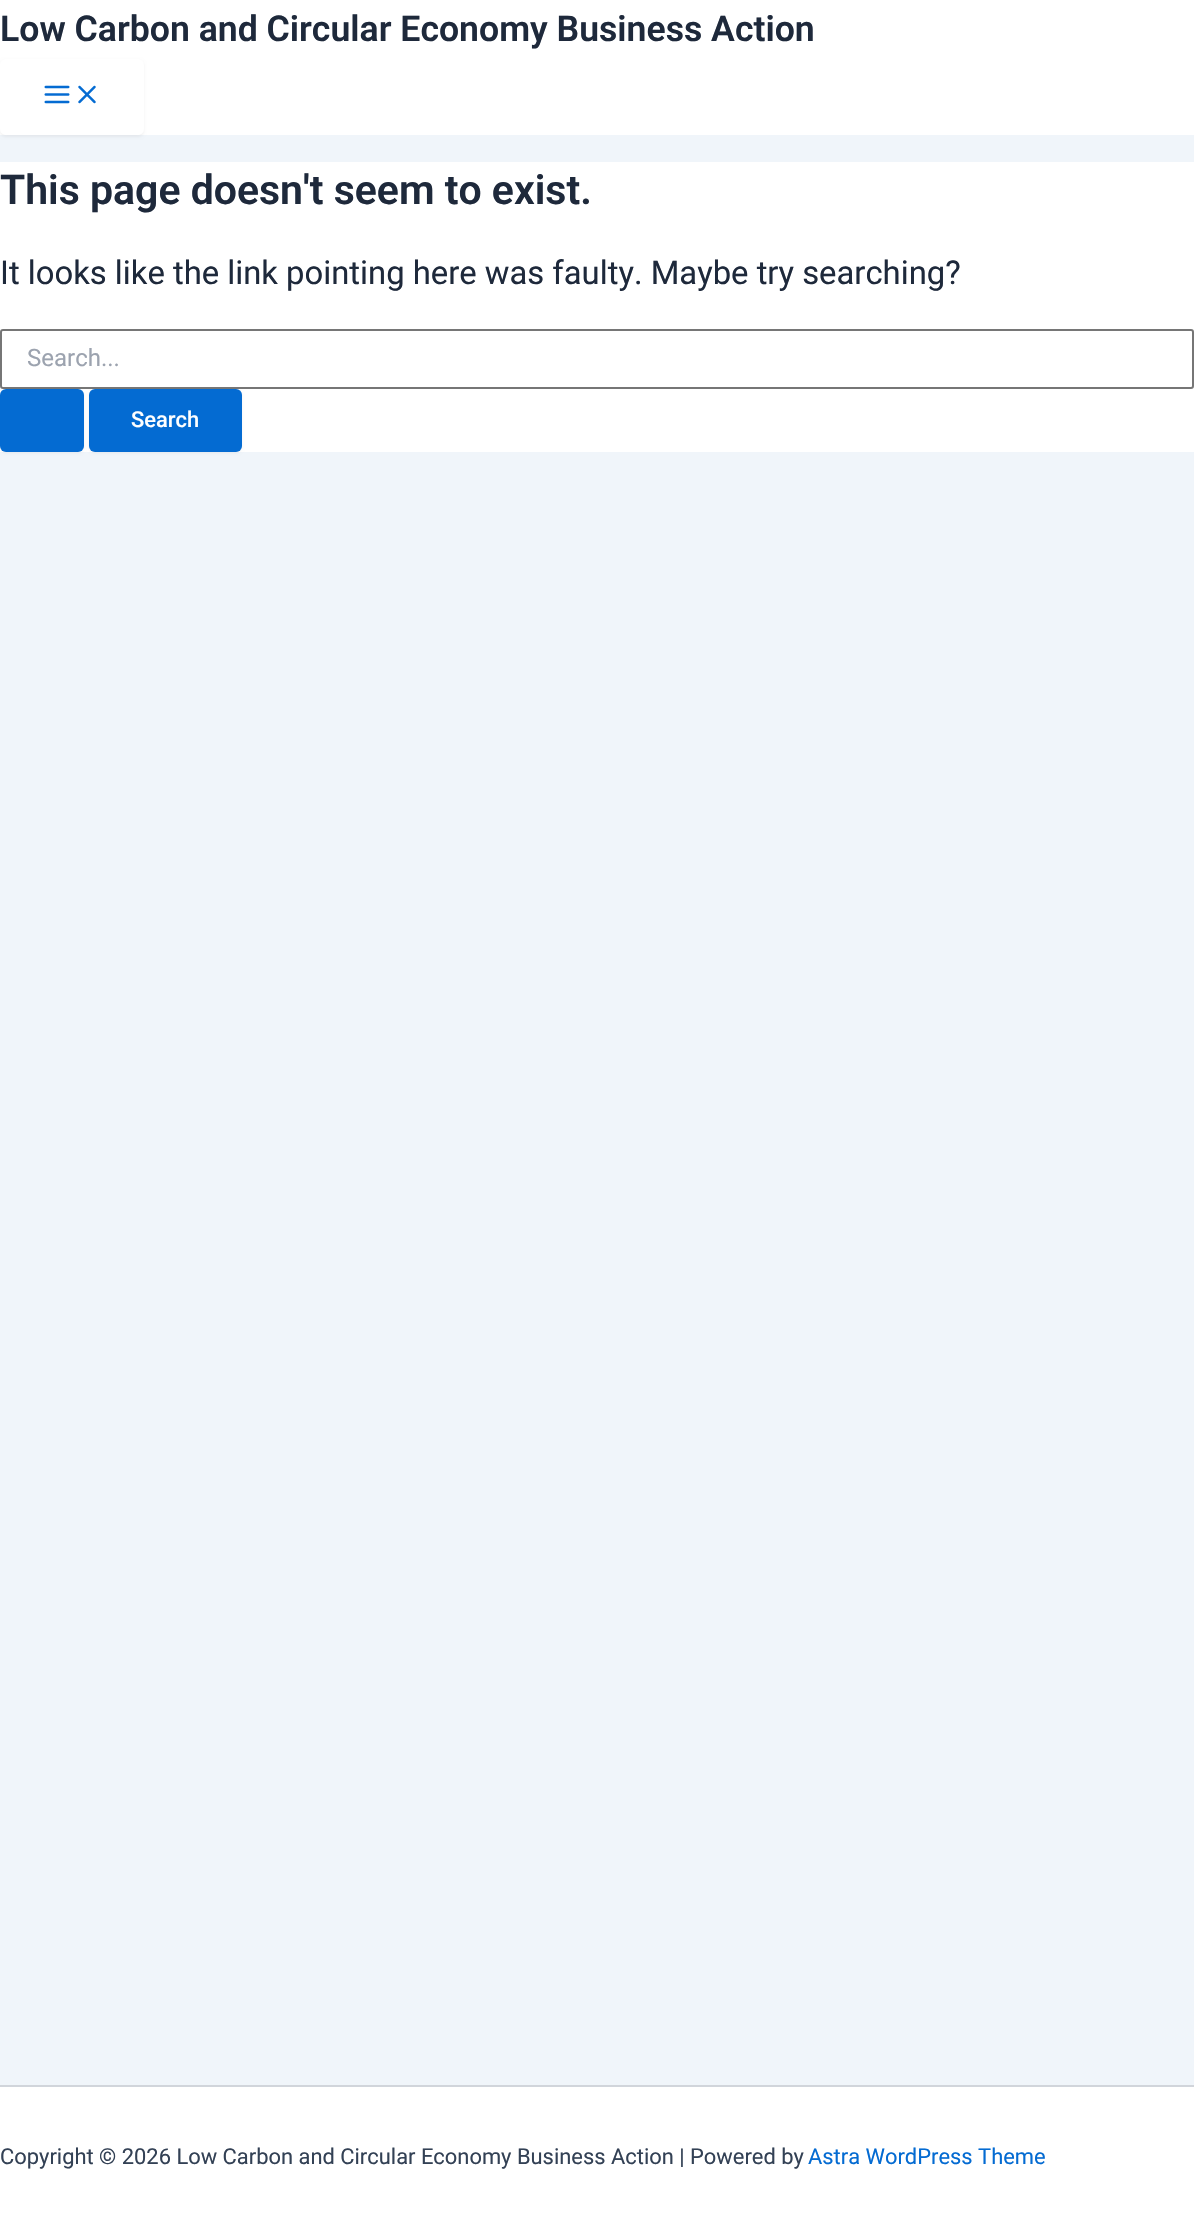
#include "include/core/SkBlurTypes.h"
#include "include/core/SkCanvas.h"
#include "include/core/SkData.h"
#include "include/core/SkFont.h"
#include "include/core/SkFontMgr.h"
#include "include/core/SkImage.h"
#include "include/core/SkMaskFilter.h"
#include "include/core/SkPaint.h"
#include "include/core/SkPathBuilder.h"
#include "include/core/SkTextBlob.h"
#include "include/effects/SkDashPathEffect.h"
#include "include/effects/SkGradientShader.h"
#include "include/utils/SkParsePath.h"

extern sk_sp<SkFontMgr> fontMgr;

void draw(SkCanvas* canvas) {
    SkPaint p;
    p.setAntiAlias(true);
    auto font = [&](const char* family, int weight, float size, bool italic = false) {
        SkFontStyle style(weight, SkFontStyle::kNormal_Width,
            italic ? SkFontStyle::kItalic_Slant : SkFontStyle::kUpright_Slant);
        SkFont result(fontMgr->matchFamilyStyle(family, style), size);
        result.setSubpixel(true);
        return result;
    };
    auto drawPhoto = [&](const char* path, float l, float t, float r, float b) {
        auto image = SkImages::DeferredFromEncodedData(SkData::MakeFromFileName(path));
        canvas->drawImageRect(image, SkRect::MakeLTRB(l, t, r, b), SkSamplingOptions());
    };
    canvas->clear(0xFFF0F5FA);
    p.setColor(0xFFFFFFFF);
    canvas->drawRect(SkRect::MakeLTRB(0, 0, 1194, 135), p);
    auto font1 = font("Roboto", 600, 35.6f);
    p.setColor(0xFF1E293B);
    canvas->drawString("Low Carbon and Circular Economy Business Action", 0, 41, font1, p);
    canvas->save();
    canvas->clipPath(SkPathBuilder(SkPathFillType::kEvenOdd).moveTo(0, 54).lineTo(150, 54).lineTo(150, 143).lineTo(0, 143).close().moveTo(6, 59).lineTo(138, 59).cubicTo(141.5f, 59, 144, 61.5f, 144, 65).lineTo(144, 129).cubicTo(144, 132.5f, 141.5f, 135, 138, 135).lineTo(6, 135).cubicTo(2.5f, 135, 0, 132.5f, 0, 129).lineTo(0, 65).cubicTo(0, 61.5f, 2.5f, 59, 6, 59).close().detach(), true);
    p.setColor(0x0D000000);
    p.setMaskFilter(SkMaskFilter::MakeBlur(kNormal_SkBlurStyle, 1.5f));
    canvas->drawRoundRect(SkRect::MakeLTRB(0, 60, 144, 137), 6, 6, p);
    p.setMaskFilter(nullptr);
    canvas->restore();
    drawPhoto("media/1.png", 44, 85, 70, 104);
    drawPhoto("media/2.png", 78, 85, 96, 104);
    p.setColor(0xFFFFFFFF);
    canvas->drawRect(SkRect::MakeLTRB(0, 162, 1194, 452), p);
    auto font2 = font("Roboto", 600, 41);
    p.setColor(0xFF1E293B);
    canvas->drawString("This page doesn't seem to exist.", 0, 204, font2, p);
    auto font3 = font("Roboto", 400, 32.8f);
    canvas->drawString("It looks like the link pointing here was faulty. Maybe try searching?", 0, 284, font3, p);
    p.setStyle(SkPaint::kStroke_Style);
    p.setStrokeWidth(2);
    p.setColor(0xFF767676);
    canvas->drawRoundRect(SkRect::MakeLTRB(1, 330, 1193, 388), 2, 2, p);
    auto font4 = font("Roboto", 400, 24);
    p.setStyle(SkPaint::kFill_Style);
    p.setColor(0xFF9CA3AF);
    canvas->drawString("Search...", 27, 366, font4, p);
    p.setColor(0x0D000000);
    p.setMaskFilter(SkMaskFilter::MakeBlur(kNormal_SkBlurStyle, 1.5f));
    canvas->drawRoundRect(SkRect::MakeLTRB(0, 390, 84, 453), 6, 6, p);
    p.setMaskFilter(nullptr);
    p.setColor(0xFF046BD2);
    canvas->drawRoundRect(SkRect::MakeLTRB(0, 389, 84, 452), 6, 6, p);
    p.setColor(0x0D000000);
    p.setMaskFilter(SkMaskFilter::MakeBlur(kNormal_SkBlurStyle, 1.5f));
    canvas->drawRoundRect(SkRect::MakeLTRB(89, 390, 242, 453), 6, 6, p);
    p.setMaskFilter(nullptr);
    p.setColor(0xFF046BD2);
    canvas->drawRoundRect(SkRect::MakeLTRB(89, 389, 242, 452), 6, 6, p);
    auto font5 = font("Roboto", 500, 21.9f);
    p.setColor(0xFFFFFFFF);
    canvas->drawString("Search", 131, 427, font5, p);
    canvas->drawRect(SkRect::MakeLTRB(0, 2087, 1194, 2236), p);
    p.setColor(0xFFD1D5DB);
    canvas->drawRect(SkRect::MakeLTRB(0, 2085, 1194, 2087), p);
    auto font6 = font("Roboto", 400, 21.9f);
    p.setColor(0xFF334155);
    canvas->drawString("Copyright © 2026 Low Carbon and Circular Economy Business Action | Powered by", 0, 2164, font6, p);
    p.setColor(0xFF046BD2);
    canvas->drawString("Astra WordPress Theme", 808, 2164, font6, p);
}
